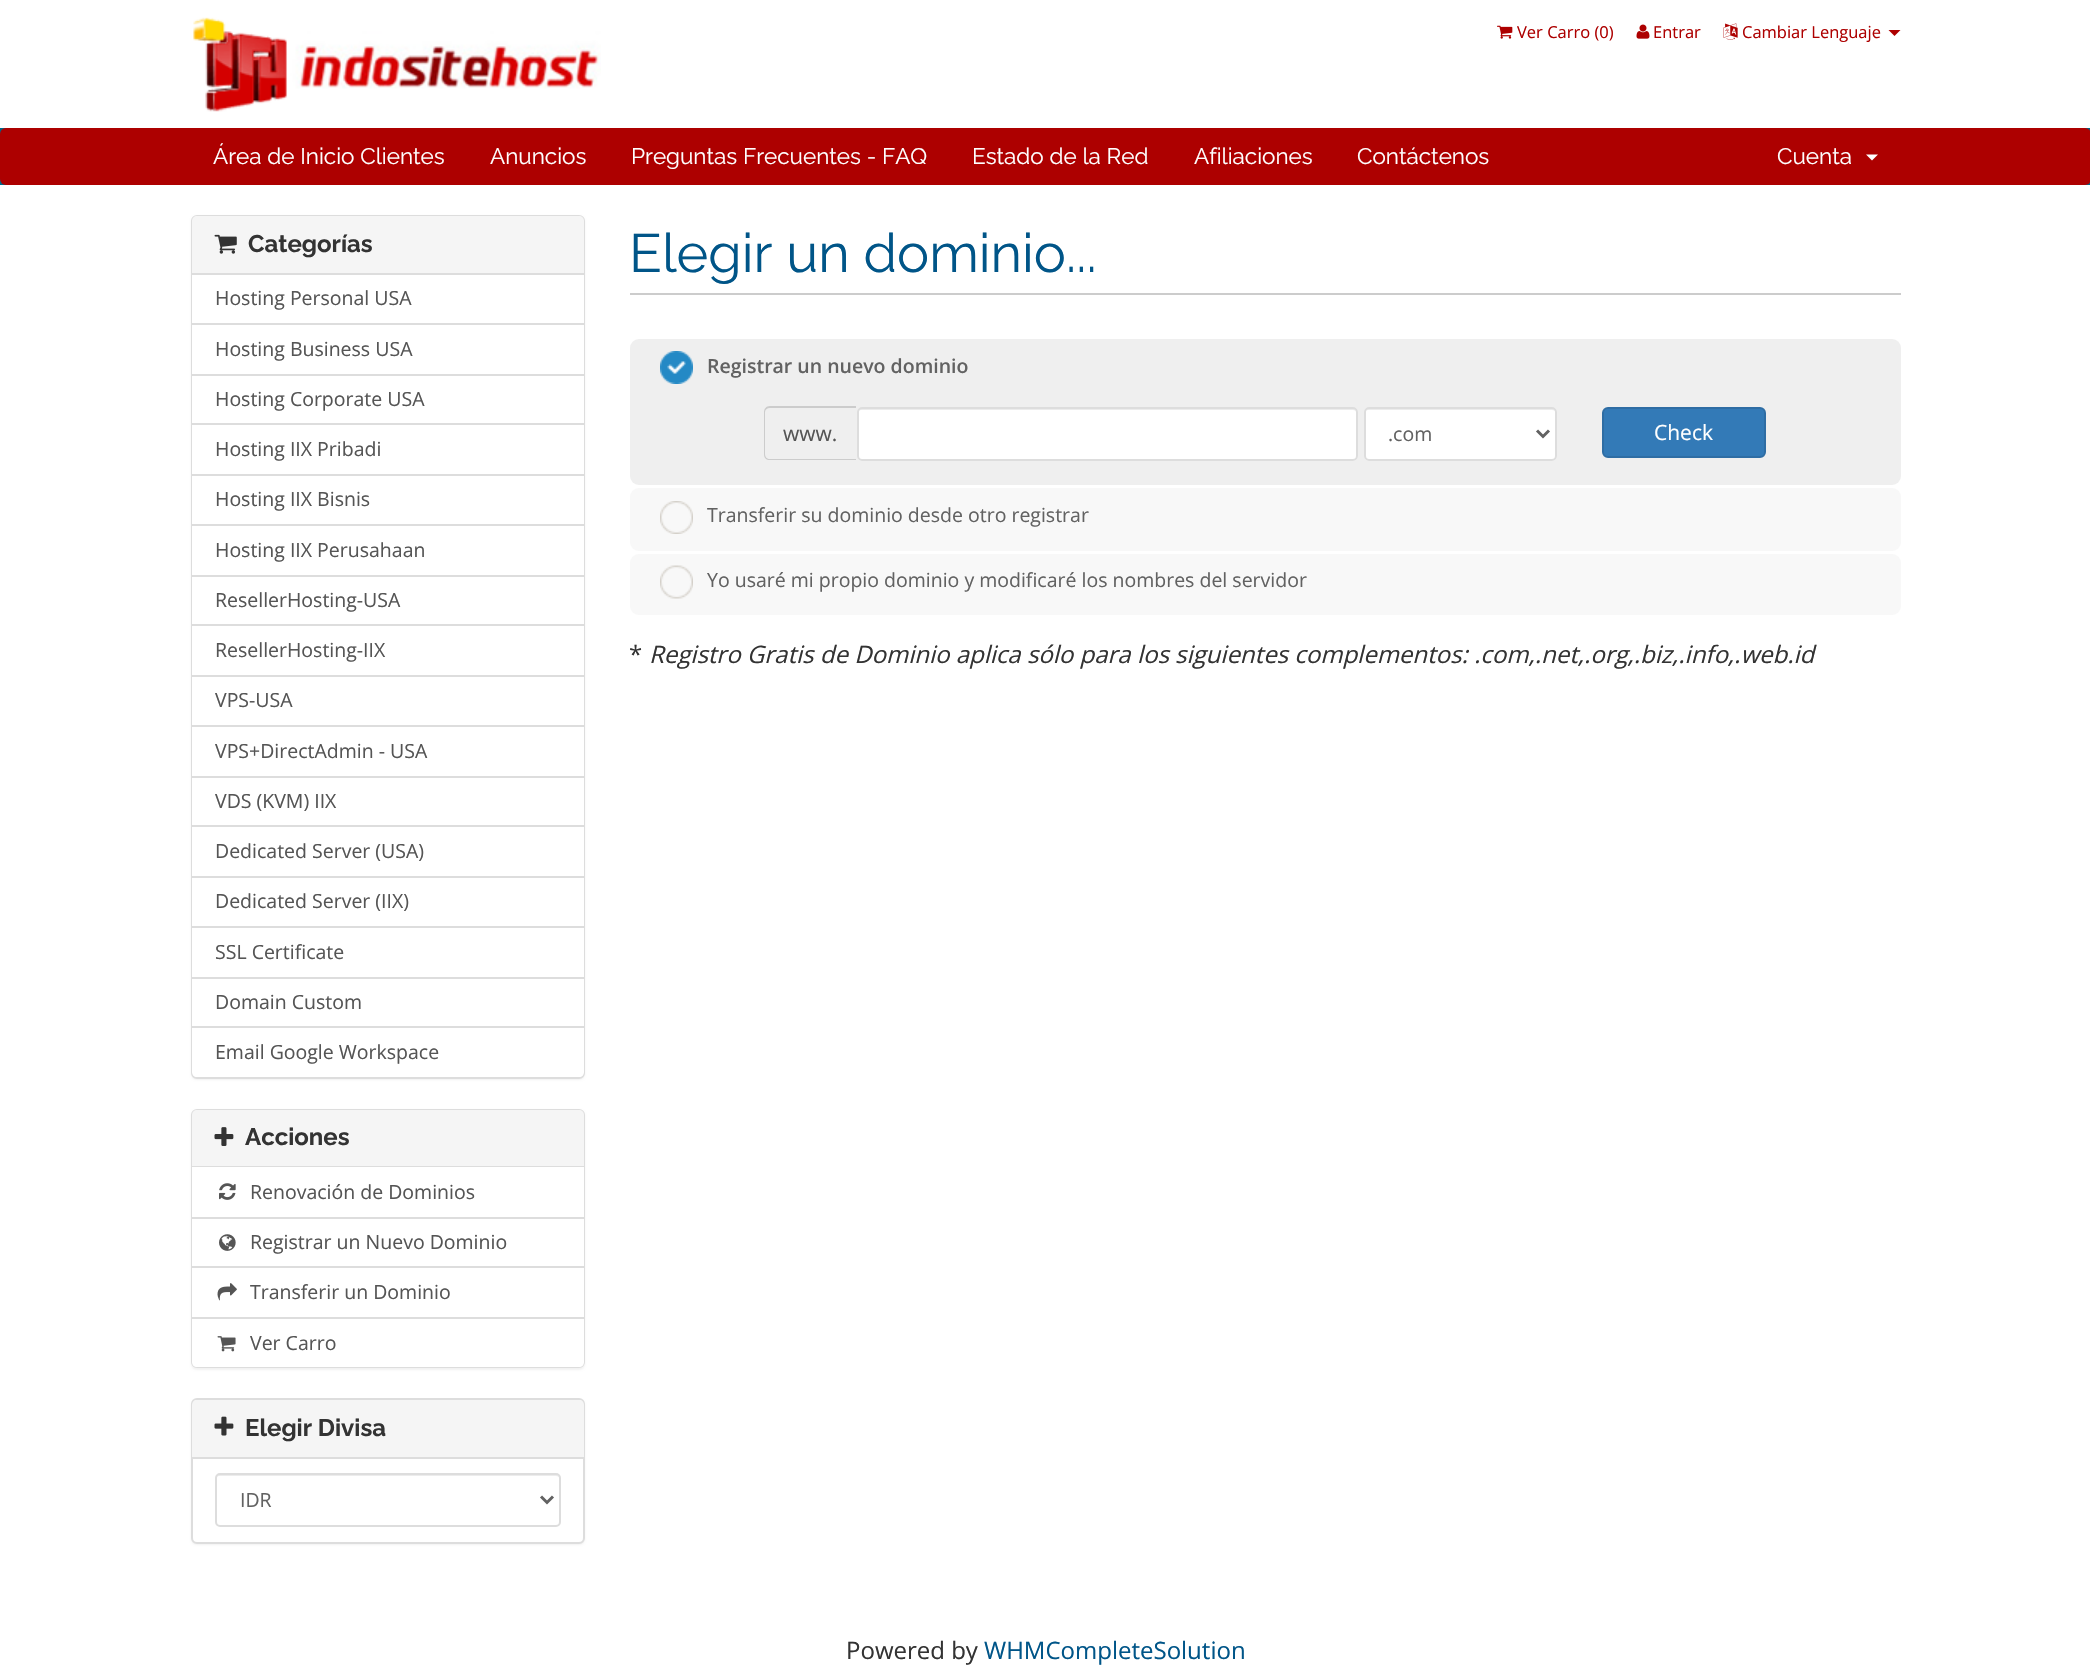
#include "include/core/SkBlurTypes.h"
#include "include/core/SkCanvas.h"
#include "include/core/SkData.h"
#include "include/core/SkFont.h"
#include "include/core/SkFontMgr.h"
#include "include/core/SkImage.h"
#include "include/core/SkMaskFilter.h"
#include "include/core/SkPaint.h"
#include "include/core/SkPathBuilder.h"
#include "include/core/SkTextBlob.h"
#include "include/effects/SkDashPathEffect.h"
#include "include/effects/SkGradientShader.h"
#include "include/utils/SkParsePath.h"

extern sk_sp<SkFontMgr> fontMgr;

void draw(SkCanvas* canvas) {
    SkPaint p;
    p.setAntiAlias(true);
    auto font = [&](const char* family, int weight, float size, bool italic = false) {
        SkFontStyle style(weight, SkFontStyle::kNormal_Width,
            italic ? SkFontStyle::kItalic_Slant : SkFontStyle::kUpright_Slant);
        SkFont result(fontMgr->matchFamilyStyle(family, style), size);
        result.setSubpixel(true);
        return result;
    };
    auto drawPhoto = [&](const char* path, float l, float t, float r, float b) {
        auto image = SkImages::DeferredFromEncodedData(SkData::MakeFromFileName(path));
        canvas->drawImageRect(image, SkRect::MakeLTRB(l, t, r, b), SkSamplingOptions());
    };
    canvas->clear(0xFFFFFFFF);
    drawPhoto("media/1.png", 193, 17, 601, 112);
    drawPhoto("media/2.png", 1497, 25, 1513, 39);
    auto font1 = font("Open Sans", 400, 16.5f);
    p.setColor(0xFFAD0000);
    canvas->drawString("Ver Carro (0)", 1517, 38, font1, p);
    drawPhoto("media/3.png", 1636, 24, 1650, 39);
    canvas->drawString("Entrar", 1653, 38, font1, p);
    drawPhoto("media/4.png", 1723, 23, 1738, 40);
    canvas->drawString("Cambiar Lenguaje", 1742, 38, font1, p);
    canvas->drawPath(SkPathBuilder().moveTo(1888.5f, 30).lineTo(1900.5f, 30).lineTo(1894.5f, 36).close().detach(), p);
    p.setColor(0xFF006687);
    canvas->drawRect(SkRect::MakeLTRB(0, 128, 2090, 185), p);
    p.setColor(0xFFAD0000);
    canvas->drawRoundRect(SkRect::MakeLTRB(0, 128, 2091, 185), 6, 6, p);
    auto font2 = font("Raleway", 400, 22.5f);
    p.setColor(0xFFFFFFFF);
    {
        const struct { const char* s; float x, y; } items[] = {
            {"Área de Inicio Clientes", 213, 164},
            {"Anuncios", 490, 164},
            {"Preguntas Frecuentes - FAQ", 631, 164},
            {"Estado de la Red", 972, 164},
            {"Afiliaciones", 1194, 164},
            {"Contáctenos", 1357, 164},
            {"Cuenta", 1777, 164},
        };
        for (auto [s, x, y] : items) {
            canvas->drawString(s, x, y, font2, p);
        }
    }
    canvas->drawPath(SkPathBuilder().moveTo(1866, 154.5f).lineTo(1878, 154.5f).lineTo(1872, 160.5f).close().detach(), p);
    p.setColor(0x0D000000);
    p.setMaskFilter(SkMaskFilter::MakeBlur(kNormal_SkBlurStyle, 1));
    canvas->drawRoundRect(SkRect::MakeLTRB(191, 216, 585, 1080), 6, 6, p);
    p.setMaskFilter(nullptr);
    p.setStyle(SkPaint::kStroke_Style);
    p.setStrokeWidth(2);
    p.setColor(0xFFDDDDDD);
    canvas->drawRoundRect(SkRect::MakeLTRB(192, 216, 584, 1078), 5, 5, p);
    p.setStyle(SkPaint::kFill_Style);
    p.setColor(0xFFF5F5F5);
    canvas->drawPath(SkPathBuilder().moveTo(197, 216).lineTo(579, 216).cubicTo(582, 216, 584, 218, 584, 221).lineTo(584, 275).lineTo(192, 275).lineTo(192, 221).cubicTo(192, 218, 194, 216, 197, 216).close().detach(), p);
    p.setColor(0xFFDDDDDD);
    canvas->drawRect(SkRect::MakeLTRB(192, 273, 584, 275), p);
    drawPhoto("media/5.png", 214, 234, 237, 254);
    auto font3 = font("Raleway", 700, 24);
    p.setColor(0xFF333333);
    canvas->drawString("Categorías", 248, 252, font3, p);
    p.setColor(0xFFFFFFFF);
    canvas->drawRect(SkRect::MakeLTRB(192, 275, 584, 323), p);
    auto font4 = font("Open Sans", 400, 19.5f);
    p.setColor(0xFF555555);
    canvas->drawString("Hosting Personal USA", 215, 305, font4, p);
    p.setColor(0xFFFFFFFF);
    canvas->drawRect(SkRect::MakeLTRB(192, 325, 584, 374), p);
    p.setColor(0xFFDDDDDD);
    canvas->drawRect(SkRect::MakeLTRB(192, 323, 584, 325), p);
    p.setColor(0xFF555555);
    canvas->drawString("Hosting Business USA", 215, 356, font4, p);
    {
        const struct { float l, t, r, b; SkColor color; } items[] = {
            {192, 376, 584, 423, 0xFFFFFFFF},
            {192, 374, 584, 376, 0xFFDDDDDD},
            {192, 423, 584, 425, 0xFFDDDDDD},
        };
        for (auto [l, t, r, b, color] : items) {
            p.setColor(color);
            canvas->drawRect(SkRect::MakeLTRB(l, t, r, b), p);
        }
    }
    p.setColor(0xFF555555);
    canvas->drawString("Hosting Corporate USA", 215, 406, font4, p);
    p.setColor(0xFFFFFFFF);
    canvas->drawRect(SkRect::MakeLTRB(192, 425, 584, 474), p);
    p.setColor(0xFFDDDDDD);
    canvas->drawRect(SkRect::MakeLTRB(192, 474, 584, 476), p);
    p.setColor(0xFF555555);
    canvas->drawString("Hosting IIX Pribadi", 215, 456, font4, p);
    p.setColor(0xFFFFFFFF);
    canvas->drawRect(SkRect::MakeLTRB(192, 476, 584, 524), p);
    p.setColor(0xFF555555);
    canvas->drawString("Hosting IIX Bisnis", 215, 506, font4, p);
    p.setColor(0xFFFFFFFF);
    canvas->drawRect(SkRect::MakeLTRB(192, 526, 584, 575), p);
    p.setColor(0xFFDDDDDD);
    canvas->drawRect(SkRect::MakeLTRB(192, 524, 584, 526), p);
    p.setColor(0xFF555555);
    canvas->drawString("Hosting IIX Perusahaan", 215, 557, font4, p);
    {
        const struct { float l, t, r, b; SkColor color; } items[] = {
            {192, 577, 584, 624, 0xFFFFFFFF},
            {192, 575, 584, 577, 0xFFDDDDDD},
            {192, 624, 584, 626, 0xFFDDDDDD},
        };
        for (auto [l, t, r, b, color] : items) {
            p.setColor(color);
            canvas->drawRect(SkRect::MakeLTRB(l, t, r, b), p);
        }
    }
    p.setColor(0xFF555555);
    canvas->drawString("ResellerHosting-USA", 215, 607, font4, p);
    p.setColor(0xFFFFFFFF);
    canvas->drawRect(SkRect::MakeLTRB(192, 626, 584, 675), p);
    p.setColor(0xFFDDDDDD);
    canvas->drawRect(SkRect::MakeLTRB(192, 675, 584, 677), p);
    p.setColor(0xFF555555);
    canvas->drawString("ResellerHosting-IIX", 215, 657, font4, p);
    p.setColor(0xFFFFFFFF);
    canvas->drawRect(SkRect::MakeLTRB(192, 677, 584, 725), p);
    p.setColor(0xFF555555);
    canvas->drawString("VPS-USA", 215, 707, font4, p);
    p.setColor(0xFFFFFFFF);
    canvas->drawRect(SkRect::MakeLTRB(192, 727, 584, 776), p);
    p.setColor(0xFFDDDDDD);
    canvas->drawRect(SkRect::MakeLTRB(192, 725, 584, 727), p);
    p.setColor(0xFF555555);
    canvas->drawString("VPS+DirectAdmin - USA", 215, 758, font4, p);
    {
        const struct { float l, t, r, b; SkColor color; } items[] = {
            {192, 778, 584, 825, 0xFFFFFFFF},
            {192, 776, 584, 778, 0xFFDDDDDD},
            {192, 825, 584, 827, 0xFFDDDDDD},
        };
        for (auto [l, t, r, b, color] : items) {
            p.setColor(color);
            canvas->drawRect(SkRect::MakeLTRB(l, t, r, b), p);
        }
    }
    p.setColor(0xFF555555);
    canvas->drawString("VDS (KVM) IIX", 215, 808, font4, p);
    p.setColor(0xFFFFFFFF);
    canvas->drawRect(SkRect::MakeLTRB(192, 827, 584, 876), p);
    p.setColor(0xFFDDDDDD);
    canvas->drawRect(SkRect::MakeLTRB(192, 876, 584, 878), p);
    p.setColor(0xFF555555);
    canvas->drawString("Dedicated Server (USA)", 215, 858, font4, p);
    p.setColor(0xFFFFFFFF);
    canvas->drawRect(SkRect::MakeLTRB(192, 878, 584, 926), p);
    p.setColor(0xFF555555);
    canvas->drawString("Dedicated Server (IIX)", 215, 908, font4, p);
    p.setColor(0xFFFFFFFF);
    canvas->drawRect(SkRect::MakeLTRB(192, 928, 584, 977), p);
    p.setColor(0xFFDDDDDD);
    canvas->drawRect(SkRect::MakeLTRB(192, 926, 584, 928), p);
    p.setColor(0xFF555555);
    canvas->drawString("SSL Certificate", 215, 959, font4, p);
    p.setColor(0xFFFFFFFF);
    canvas->drawRect(SkRect::MakeLTRB(192, 979, 584, 1026), p);
    p.setColor(0xFFDDDDDD);
    canvas->drawRect(SkRect::MakeLTRB(192, 977, 584, 979), p);
    p.setColor(0xFF555555);
    canvas->drawString("Domain Custom", 215, 1009, font4, p);
    p.setColor(0xFFFFFFFF);
    canvas->drawPath(SkPathBuilder().moveTo(192, 1026).lineTo(584, 1026).lineTo(584, 1072).cubicTo(584, 1075, 582, 1077, 579, 1077).lineTo(197, 1077).cubicTo(194, 1077, 192, 1075, 192, 1072).close().detach(), p);
    p.setColor(0xFFDDDDDD);
    canvas->drawRect(SkRect::MakeLTRB(192, 1026, 584, 1028), p);
    p.setColor(0xFF555555);
    canvas->drawString("Email Google Workspace", 215, 1059, font4, p);
    p.setColor(0x0D000000);
    p.setMaskFilter(SkMaskFilter::MakeBlur(kNormal_SkBlurStyle, 1));
    canvas->drawRoundRect(SkRect::MakeLTRB(191, 1110, 585, 1370), 6, 6, p);
    p.setMaskFilter(nullptr);
    p.setStyle(SkPaint::kStroke_Style);
    p.setColor(0xFFDDDDDD);
    canvas->drawRoundRect(SkRect::MakeLTRB(192, 1110, 584, 1367), 5, 5, p);
    p.setStyle(SkPaint::kFill_Style);
    p.setColor(0xFFF5F5F5);
    canvas->drawPath(SkPathBuilder().moveTo(197, 1110).lineTo(579, 1110).cubicTo(582, 1110, 584, 1112, 584, 1115).lineTo(584, 1167).lineTo(192, 1167).lineTo(192, 1115).cubicTo(192, 1112, 194, 1110, 197, 1110).close().detach(), p);
    p.setColor(0xFFDDDDDD);
    canvas->drawRect(SkRect::MakeLTRB(192, 1166, 584, 1167), p);
    drawPhoto("media/6.png", 214, 1127, 234, 1146);
    p.setColor(0xFF333333);
    canvas->drawString("Acciones", 245, 1145, font3, p);
    p.setColor(0xFFFFFFFF);
    canvas->drawRect(SkRect::MakeLTRB(192, 1167, 584, 1217), p);
    drawPhoto("media/7.png", 219, 1183, 236, 1200);
    p.setColor(0xFF555555);
    canvas->drawString("Renovación de Dominios", 250, 1199, font4, p);
    {
        const struct { float l, t, r, b; SkColor color; } items[] = {
            {192, 1219, 584, 1266, 0xFFFFFFFF},
            {192, 1217, 584, 1219, 0xFFDDDDDD},
            {192, 1266, 584, 1268, 0xFFDDDDDD},
        };
        for (auto [l, t, r, b, color] : items) {
            p.setColor(color);
            canvas->drawRect(SkRect::MakeLTRB(l, t, r, b), p);
        }
    }
    drawPhoto("media/8.png", 219, 1234, 236, 1251);
    p.setColor(0xFF555555);
    canvas->drawString("Registrar un Nuevo Dominio", 250, 1249, font4, p);
    p.setColor(0xFFFFFFFF);
    canvas->drawRect(SkRect::MakeLTRB(192, 1268, 584, 1317), p);
    drawPhoto("media/9.png", 217, 1283, 237, 1301);
    p.setColor(0xFF555555);
    canvas->drawString("Transferir un Dominio", 250, 1299, font4, p);
    p.setColor(0xFFFFFFFF);
    canvas->drawPath(SkPathBuilder().moveTo(192, 1317).lineTo(584, 1317).lineTo(584, 1362).cubicTo(584, 1365, 582, 1367, 579, 1367).lineTo(197, 1367).cubicTo(194, 1367, 192, 1365, 192, 1362).close().detach(), p);
    p.setColor(0xFFDDDDDD);
    canvas->drawRect(SkRect::MakeLTRB(192, 1317, 584, 1319), p);
    drawPhoto("media/10.png", 217, 1336, 236, 1352);
    p.setColor(0xFF555555);
    canvas->drawString("Ver Carro", 250, 1350, font4, p);
    p.setColor(0x0D000000);
    p.setMaskFilter(SkMaskFilter::MakeBlur(kNormal_SkBlurStyle, 1));
    canvas->drawRoundRect(SkRect::MakeLTRB(191, 1400, 585, 1545), 6, 6, p);
    p.setMaskFilter(nullptr);
    p.setColor(0xFFFFFFFF);
    canvas->drawRoundRect(SkRect::MakeLTRB(192, 1399, 584, 1543), 5, 5, p);
    p.setStyle(SkPaint::kStroke_Style);
    p.setColor(0xFFDDDDDD);
    canvas->drawRoundRect(SkRect::MakeLTRB(192, 1399, 584, 1543), 5, 5, p);
    p.setStyle(SkPaint::kFill_Style);
    p.setColor(0xFFF5F5F5);
    canvas->drawPath(SkPathBuilder().moveTo(197, 1400).lineTo(579, 1400).cubicTo(582, 1400, 584, 1402, 584, 1405).lineTo(584, 1458).lineTo(192, 1458).lineTo(192, 1405).cubicTo(192, 1402, 194, 1400, 197, 1400).close().detach(), p);
    p.setColor(0xFFDDDDDD);
    canvas->drawRect(SkRect::MakeLTRB(192, 1457, 584, 1459), p);
    drawPhoto("media/11.png", 214, 1416, 234, 1436);
    p.setColor(0xFF333333);
    canvas->drawString("Elegir Divisa", 245, 1436, font3, p);
    p.setColor(0xFFECECEC);
    canvas->drawPath(SkPathBuilder().moveTo(219, 1476).lineTo(556, 1476).cubicTo(558, 1476, 560, 1477, 560, 1479).cubicTo(560, 1477, 559, 1475, 557, 1475).lineTo(219, 1475).cubicTo(217, 1475, 216, 1477, 216, 1479).cubicTo(216, 1477, 217, 1476, 219, 1476).close().detach(), p);
    p.setStyle(SkPaint::kStroke_Style);
    p.setColor(0xFFDDDDDD);
    canvas->drawRoundRect(SkRect::MakeLTRB(216, 1474, 560, 1526), 4, 4, p);
    p.setStrokeWidth(3);
    p.setColor(0xFF626262);
    canvas->drawPath(SkPathBuilder().moveTo(541, 1496.5f).lineTo(547, 1502.5f).lineTo(553, 1496.5f).detach(), p);
    p.setStyle(SkPaint::kFill_Style);
    canvas->drawString("IDR", 240, 1507, font4, p);
    p.setColor(0xFFCCCCCC);
    canvas->drawRect(SkRect::MakeLTRB(630, 293, 1901, 295), p);
    auto font5 = font("Raleway", 400, 54);
    p.setColor(0xFF005588);
    canvas->drawString("Elegir un dominio...", 629, 272, font5, p);
    p.setColor(0xFFEFEFEF);
    canvas->drawRoundRect(SkRect::MakeLTRB(630, 339, 1901, 485), 9, 9, p);
    drawPhoto("media/12.png", 660, 351, 693, 384);
    auto font6 = font("Open Sans", 600, 19.5f);
    p.setColor(0xFF626262);
    canvas->drawString("Registrar un nuevo dominio", 707, 373, font6, p);
    p.setColor(0xFFCCCCCC);
    canvas->drawPath(SkPathBuilder(SkPathFillType::kEvenOdd).moveTo(770, 406).lineTo(856, 406).lineTo(856, 460).lineTo(770, 460).cubicTo(766, 460, 764, 458, 764, 454).lineTo(764, 412).cubicTo(764, 409, 766, 406, 770, 406).close().moveTo(770, 408).lineTo(856, 408).lineTo(856, 459).lineTo(770, 459).cubicTo(767, 459, 765, 457, 765, 454).lineTo(765, 412).cubicTo(765, 410, 767, 408, 770, 408).close().detach(), p);
    auto font7 = font("Open Sans", 400, 21);
    p.setColor(0xFF555555);
    canvas->drawString("www.", 783, 441, font7, p);
    p.setColor(0xFFFFFFFF);
    canvas->drawRoundRect(SkRect::MakeLTRB(857, 407, 1358, 461), 5, 5, p);
    p.setColor(0xFFECECEC);
    canvas->drawPath(SkPathBuilder().moveTo(861, 410).lineTo(1353, 410).cubicTo(1355, 410, 1356, 411, 1356, 412).cubicTo(1356, 410, 1355, 408, 1353, 408).lineTo(861, 408).cubicTo(859, 408, 858, 410, 858, 412).cubicTo(858, 411, 859, 410, 861, 410).close().detach(), p);
    p.setStyle(SkPaint::kStroke_Style);
    p.setStrokeWidth(2);
    p.setColor(0xFFDDDDDD);
    canvas->drawRoundRect(SkRect::MakeLTRB(858, 408, 1357, 460), 4, 4, p);
    p.setStyle(SkPaint::kFill_Style);
    p.setColor(0xFFFFFFFF);
    canvas->drawRoundRect(SkRect::MakeLTRB(1364, 407, 1557, 461), 5, 5, p);
    p.setColor(0xFFECECEC);
    canvas->drawPath(SkPathBuilder().moveTo(1368, 410).lineTo(1552, 410).cubicTo(1554, 410, 1556, 411, 1556, 412).cubicTo(1556, 410, 1555, 408, 1553, 408).lineTo(1368, 408).cubicTo(1366, 408, 1365, 410, 1365, 412).cubicTo(1365, 411, 1366, 410, 1368, 410).close().detach(), p);
    p.setStyle(SkPaint::kStroke_Style);
    p.setColor(0xFFDDDDDD);
    canvas->drawRoundRect(SkRect::MakeLTRB(1365, 408, 1556, 460), 4, 4, p);
    p.setStrokeWidth(3);
    p.setColor(0xFF626262);
    canvas->drawPath(SkPathBuilder().moveTo(1537, 430.5f).lineTo(1543, 436.5f).lineTo(1549, 430.5f).detach(), p);
    p.setStyle(SkPaint::kFill_Style);
    canvas->drawString(".com", 1388, 441, font4, p);
    p.setColor(0xFF337AB7);
    canvas->drawRoundRect(SkRect::MakeLTRB(1603, 408, 1765, 457), 5, 5, p);
    p.setStyle(SkPaint::kStroke_Style);
    p.setStrokeWidth(2);
    p.setColor(0xFF2E6DA4);
    canvas->drawRoundRect(SkRect::MakeLTRB(1603, 408, 1765, 457), 5, 5, p);
    p.setStyle(SkPaint::kFill_Style);
    p.setColor(0xFFFFFFFF);
    canvas->drawString("Check", 1654, 440, font7, p);
    p.setColor(0xFFF8F8F8);
    canvas->drawRoundRect(SkRect::MakeLTRB(630, 488, 1901, 551), 9, 9, p);
    drawPhoto("media/13.png", 660, 501, 693, 534);
    p.setColor(0xFF626262);
    canvas->drawString("Transferir su dominio desde otro registrar", 707, 522, font4, p);
    p.setColor(0xFFF8F8F8);
    canvas->drawRoundRect(SkRect::MakeLTRB(630, 554, 1901, 615), 9, 9, p);
    drawPhoto("media/14.png", 660, 565, 693, 599);
    p.setColor(0xFF626262);
    canvas->drawString("Yo usaré mi propio dominio y modificaré los nombres del servidor", 707, 587, font4, p);
    auto font8 = font("Open Sans", 400, 24);
    p.setColor(0xFF333333);
    canvas->drawString("*", 629, 663, font8, p);
    auto font9 = font("Open Sans", 400, 24, true);
    canvas->drawString("Registro Gratis de Dominio aplica sólo para los siguientes complementos: .com,.net,.org,.biz,.info,.web.id", 649, 663, font9, p);
    canvas->drawString("Powered by", 846, 1659, font8, p);
    p.setColor(0xFF005588);
    canvas->drawString("WHMCompleteSolution", 984, 1659, font8, p);
}
